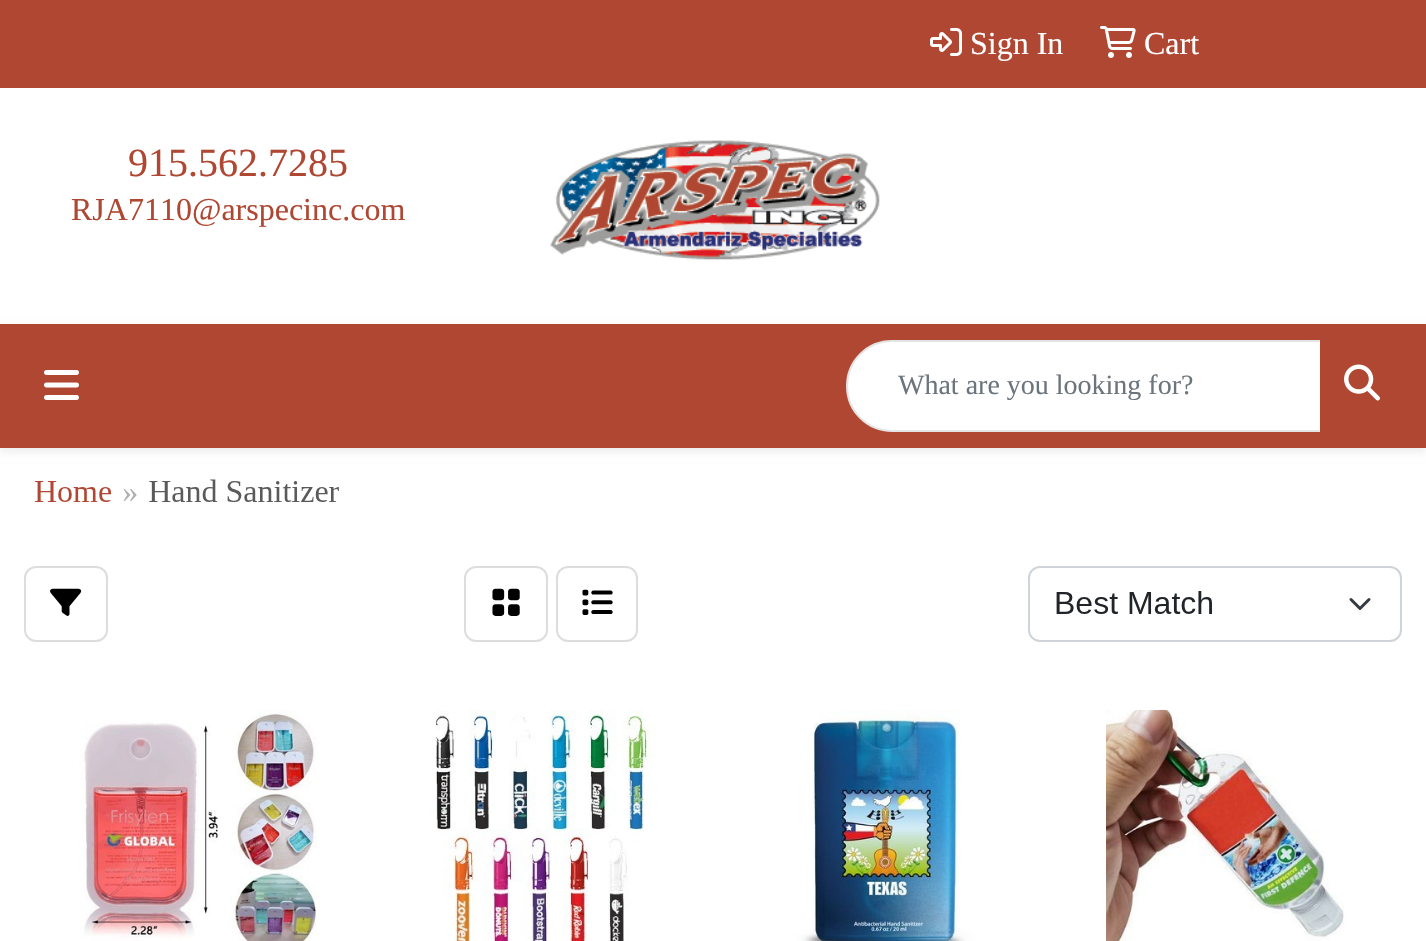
#include "include/core/SkBlurTypes.h"
#include "include/core/SkCanvas.h"
#include "include/core/SkData.h"
#include "include/core/SkFont.h"
#include "include/core/SkFontMgr.h"
#include "include/core/SkImage.h"
#include "include/core/SkMaskFilter.h"
#include "include/core/SkPaint.h"
#include "include/core/SkPathBuilder.h"
#include "include/core/SkTextBlob.h"
#include "include/effects/SkDashPathEffect.h"
#include "include/effects/SkGradientShader.h"
#include "include/utils/SkParsePath.h"

extern sk_sp<SkFontMgr> fontMgr;

void draw(SkCanvas* canvas) {
    SkPaint p;
    p.setAntiAlias(true);
    auto font = [&](const char* family, int weight, float size, bool italic = false) {
        SkFontStyle style(weight, SkFontStyle::kNormal_Width,
            italic ? SkFontStyle::kItalic_Slant : SkFontStyle::kUpright_Slant);
        SkFont result(fontMgr->matchFamilyStyle(family, style), size);
        result.setSubpixel(true);
        return result;
    };
    auto drawPhoto = [&](const char* path, float l, float t, float r, float b) {
        auto image = SkImages::DeferredFromEncodedData(SkData::MakeFromFileName(path));
        canvas->drawImageRect(image, SkRect::MakeLTRB(l, t, r, b), SkSamplingOptions());
    };
    canvas->clear(0xFFFFFFFF);
    p.setColor(0xFFAF4732);
    canvas->drawRect(SkRect::MakeLTRB(0, 0, 1426, 88), p);
    drawPhoto("media/1.png", 930, 28, 962, 56);
    auto font1 = font("Liberation Serif", 400, 32);
    p.setColor(0xFFFFFFFF);
    canvas->drawString("Sign In", 970, 54, font1, p);
    drawPhoto("media/2.png", 1100, 26, 1136, 58);
    canvas->drawString("Cart", 1144, 54, font1, p);
    auto font2 = font("Liberation Serif", 400, 40);
    p.setColor(0xFFAF4732);
    canvas->drawString("915.562.7285", 128, 176, font2, p);
    canvas->drawString("RJA7110@arspecinc.com", 71, 220, font1, p);
    drawPhoto("media/3.png", 550, 140, 880, 260);
    p.setColor(0x12000000);
    p.setMaskFilter(SkMaskFilter::MakeBlur(kNormal_SkBlurStyle, 4));
    canvas->drawRect(SkRect::MakeLTRB(0, 328, 1426, 452), p);
    p.setMaskFilter(nullptr);
    p.setColor(0xFFAF4732);
    canvas->drawRect(SkRect::MakeLTRB(0, 324, 1426, 448), p);
    drawPhoto("media/4.png", 44, 370, 79, 400);
    p.setColor(0xFFFFFFFF);
    canvas->drawPath(SkPathBuilder().moveTo(892, 341).lineTo(1321, 341).lineTo(1321, 431).lineTo(892, 431).cubicTo(867, 431, 847, 411, 847, 386).cubicTo(847, 361, 867, 341, 892, 341).close().detach(), p);
    p.setStyle(SkPaint::kStroke_Style);
    p.setStrokeWidth(2);
    p.setColor(0xFFE4E4E4);
    canvas->drawPath(SkPathBuilder().moveTo(892, 341).lineTo(1321, 341).lineTo(1321, 431).lineTo(892, 431).cubicTo(867, 431, 847, 411, 847, 386).cubicTo(847, 361, 867, 341, 892, 341).close().detach(), p);
    auto font3 = font("Liberation Serif", 400, 28);
    p.setStyle(SkPaint::kFill_Style);
    p.setColor(0xFF6C757D);
    canvas->drawString("What are you looking for?", 898, 394, font3, p);
    p.setColor(0xFFAF4732);
    canvas->drawPath(SkPathBuilder().moveTo(1320, 342).lineTo(1360, 342).cubicTo(1384.5f, 342, 1404, 361.5f, 1404, 386).cubicTo(1404, 410.5f, 1384.5f, 430, 1360, 430).lineTo(1320, 430).close().detach(), p);
    canvas->drawPath(SkPathBuilder(SkPathFillType::kEvenOdd).moveTo(1320, 340).lineTo(1360, 340).cubicTo(1385, 340, 1406, 361, 1406, 386).cubicTo(1406, 411, 1385, 432, 1360, 432).lineTo(1320, 432).close().moveTo(1320, 342).lineTo(1360, 342).cubicTo(1384, 342, 1404, 362, 1404, 386).cubicTo(1404, 410, 1384, 430, 1360, 430).lineTo(1320, 430).close().detach(), p);
    drawPhoto("media/5.png", 1344, 364, 1380, 401);
    drawPhoto("media/6.png", 24, 479, 1402, 941);
}
